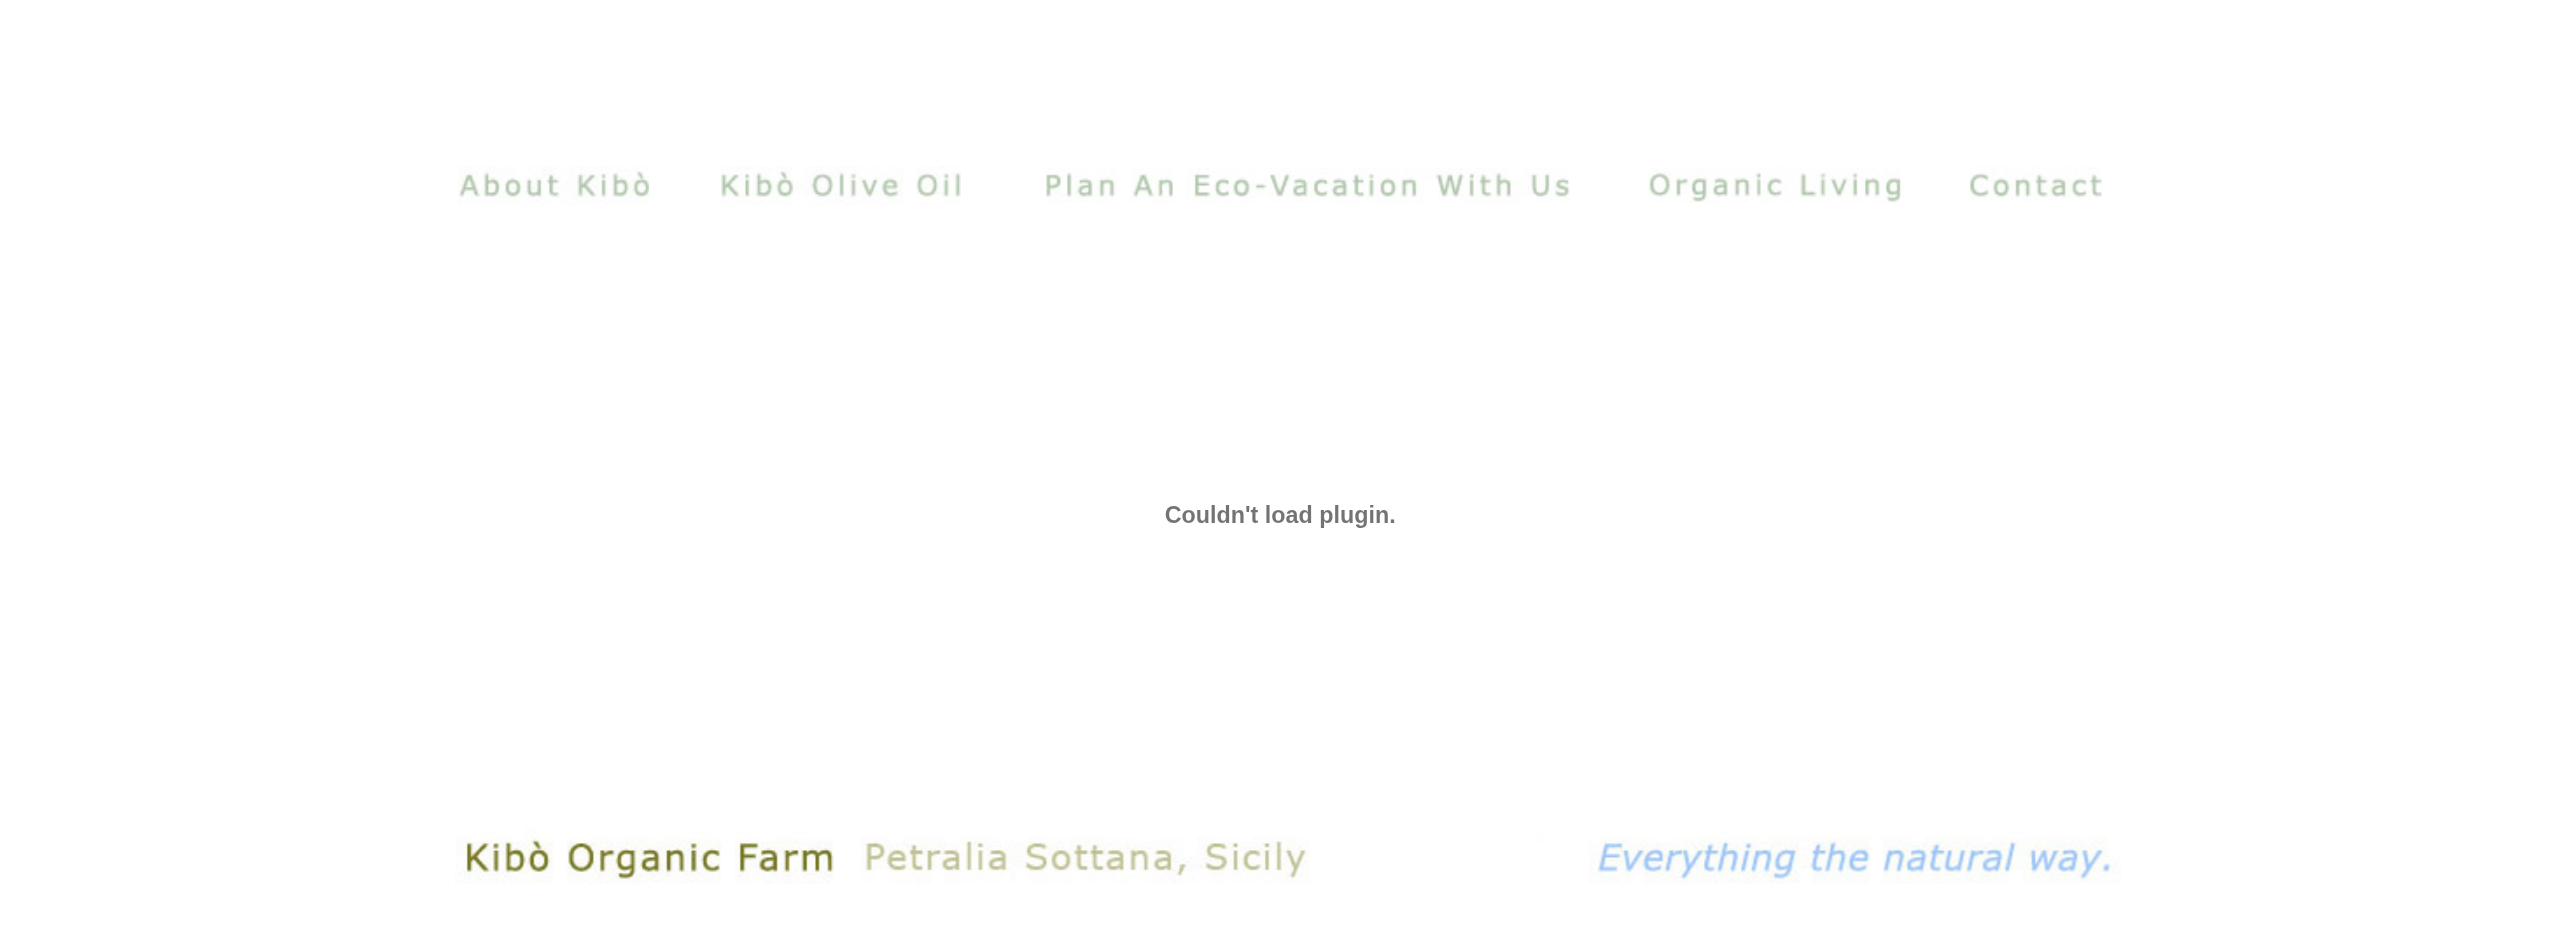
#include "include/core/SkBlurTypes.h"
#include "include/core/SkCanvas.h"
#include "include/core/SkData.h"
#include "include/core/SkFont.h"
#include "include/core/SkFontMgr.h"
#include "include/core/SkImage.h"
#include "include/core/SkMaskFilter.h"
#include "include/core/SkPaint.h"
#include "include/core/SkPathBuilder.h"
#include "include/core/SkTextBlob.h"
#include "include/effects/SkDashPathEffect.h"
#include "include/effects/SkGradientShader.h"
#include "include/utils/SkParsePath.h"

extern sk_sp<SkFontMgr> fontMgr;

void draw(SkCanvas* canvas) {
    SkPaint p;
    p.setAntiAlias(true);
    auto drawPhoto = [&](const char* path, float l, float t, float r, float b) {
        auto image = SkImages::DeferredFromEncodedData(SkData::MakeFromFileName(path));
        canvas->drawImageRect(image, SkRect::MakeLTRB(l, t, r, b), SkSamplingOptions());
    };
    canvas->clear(0xFFFFFFFF);
    drawPhoto("media/1.png", 458, 166, 650, 205);
    drawPhoto("media/2.png", 721, 166, 961, 205);
    drawPhoto("media/3.png", 1046, 167, 1570, 203);
    drawPhoto("media/4.png", 1648, 167, 1901, 203);
    drawPhoto("media/5.png", 1970, 166, 2102, 201);
    {
        const struct { float l, t, r, b; SkColor color; } items[] = {
            {649, 182, 650, 193, 0xBFFFFFFF},
            {1900, 178, 1901, 200, 0x80FFFFFF},
            {2101, 180, 2102, 196, 0x40FFFFFF},
        };
        for (auto [l, t, r, b, color] : items) {
            p.setColor(color);
            canvas->drawRect(SkRect::MakeLTRB(l, t, r, b), p);
        }
    }
    drawPhoto("media/6.png", 1165, 505, 1395, 528);
    drawPhoto("media/7.png", 455, 828, 2121, 884);
}
